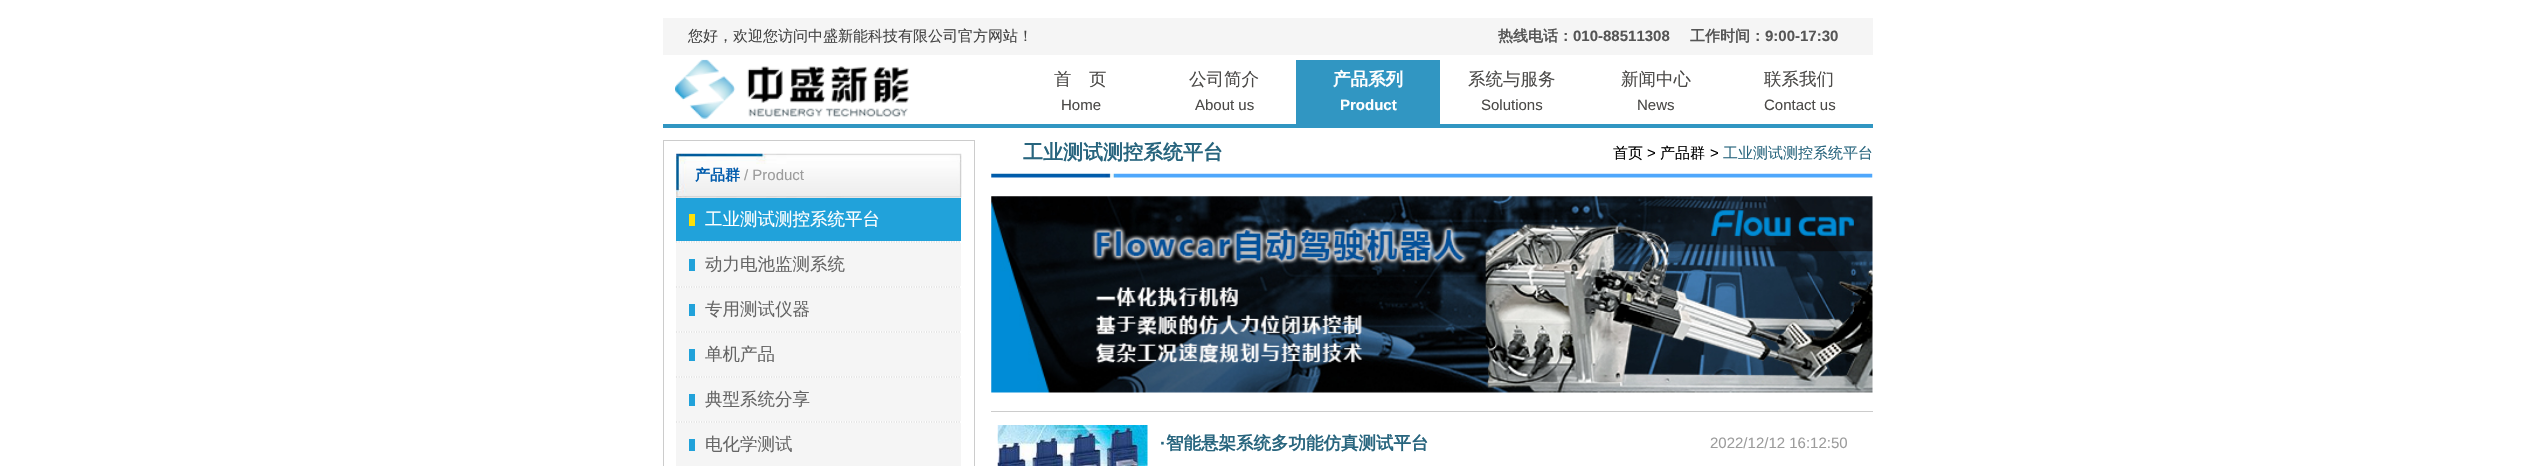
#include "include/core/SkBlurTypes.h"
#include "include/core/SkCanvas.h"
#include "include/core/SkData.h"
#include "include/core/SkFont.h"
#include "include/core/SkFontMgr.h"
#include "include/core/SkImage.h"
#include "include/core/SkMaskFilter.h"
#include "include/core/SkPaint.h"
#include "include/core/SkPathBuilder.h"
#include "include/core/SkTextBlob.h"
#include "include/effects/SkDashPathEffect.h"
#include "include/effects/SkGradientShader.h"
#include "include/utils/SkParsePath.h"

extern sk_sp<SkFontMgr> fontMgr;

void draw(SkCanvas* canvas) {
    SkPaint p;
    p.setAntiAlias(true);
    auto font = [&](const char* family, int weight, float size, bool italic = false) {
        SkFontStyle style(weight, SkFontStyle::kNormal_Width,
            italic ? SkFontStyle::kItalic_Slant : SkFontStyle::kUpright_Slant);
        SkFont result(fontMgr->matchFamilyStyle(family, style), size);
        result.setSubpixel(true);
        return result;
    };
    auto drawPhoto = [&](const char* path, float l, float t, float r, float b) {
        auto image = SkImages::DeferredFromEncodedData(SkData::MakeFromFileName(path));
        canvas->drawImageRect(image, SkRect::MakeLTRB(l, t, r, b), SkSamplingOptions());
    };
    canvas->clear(0xFFFFFFFF);
    p.setColor(0xFFF5F5F5);
    canvas->drawRect(SkRect::MakeLTRB(663, 18, 1873, 55), p);
    auto font1 = font("WenQuanYi Zen Hei", 500, 15);
    p.setColor(0xFF444444);
    canvas->drawString("您好，欢迎您访问中盛新能科技有限公司官方网站！", 688, 41, font1, p);
    auto font2 = font("WenQuanYi Zen Hei", 700, 15);
    p.setColor(0xFF555555);
    canvas->drawString("热线电话：", 1498, 41, font2, p);
    auto font3 = font("Liberation Sans", 700, 15);
    canvas->drawString("010-88511308", 1573, 41, font3, p);
    canvas->drawString("工作时间：", 1690, 41, font2, p);
    canvas->drawString("9:00-17:30", 1765, 41, font3, p);
    drawPhoto("media/1.png", 675, 59, 909, 119);
    auto font4 = font("WenQuanYi Zen Hei", 500, 17.5f);
    p.setColor(0xFF4B4A48);
    canvas->drawString("首　页", 1054, 85, font4, p);
    auto font5 = font("Liberation Sans", 400, 15);
    canvas->drawString("Home", 1061, 110, font5, p);
    canvas->drawString("公司简介", 1189, 85, font4, p);
    canvas->drawString("About us", 1195, 110, font5, p);
    p.setColor(0xFF3196C2);
    canvas->drawRect(SkRect::MakeLTRB(1296, 60, 1440, 124), p);
    auto font6 = font("WenQuanYi Zen Hei", 700, 17.5f);
    p.setColor(0xFFFFFFFF);
    canvas->drawString("产品系列", 1333, 85, font6, p);
    canvas->drawString("Product", 1340, 110, font3, p);
    p.setColor(0xFF4B4A48);
    canvas->drawString("系统与服务", 1468, 85, font4, p);
    canvas->drawString("Solutions", 1481, 110, font5, p);
    canvas->drawString("新闻中心", 1621, 85, font4, p);
    canvas->drawString("News", 1637, 110, font5, p);
    canvas->drawString("联系我们", 1764, 85, font4, p);
    canvas->drawString("Contact us", 1764, 110, font5, p);
    p.setColor(0xFF3196C2);
    canvas->drawRect(SkRect::MakeLTRB(663, 124, 1873, 128), p);
    p.setStyle(SkPaint::kStroke_Style);
    p.setStrokeWidth(1);
    p.setColor(0xFFCCCCCC);
    canvas->drawRect(SkRect::MakeLTRB(663.5f, 140.5f, 974.5f, 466.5f), p);
    drawPhoto("media/2.png", 676, 153, 962, 198);
    p.setStyle(SkPaint::kFill_Style);
    p.setColor(0xFF005BAC);
    canvas->drawString("产品群", 695, 180, font2, p);
    p.setColor(0xFF9C9C9C);
    canvas->drawString("/ Product", 744, 180, font5, p);
    p.setStyle(SkPaint::kStroke_Style);
    p.setStrokeWidth(1.2f);
    p.setColor(0xFFCCCCCC);
    p.setPathEffect(SkDashPathEffect::Make({{1.25f, 1.25f}}, 0));
    canvas->drawPath(SkPathBuilder().moveTo(676, 242).lineTo(961, 242).detach(), p);
    p.setPathEffect(nullptr);
    p.setStyle(SkPaint::kFill_Style);
    p.setColor(0xFF21A2DA);
    canvas->drawRect(SkRect::MakeLTRB(676, 198, 961, 241), p);
    p.setColor(0xFFFEE006);
    canvas->drawRect(SkRect::MakeLTRB(689, 214, 695, 226), p);
    p.setColor(0xFFFFFFFF);
    canvas->drawString("工业测试测控系统平台", 705, 225, font4, p);
    p.setStyle(SkPaint::kStroke_Style);
    p.setColor(0xFFCCCCCC);
    p.setPathEffect(SkDashPathEffect::Make({{1.25f, 1.25f}}, 0));
    canvas->drawPath(SkPathBuilder().moveTo(676, 287).lineTo(961, 287).detach(), p);
    p.setPathEffect(nullptr);
    p.setStyle(SkPaint::kFill_Style);
    p.setColor(0xFFF5F5F5);
    canvas->drawRect(SkRect::MakeLTRB(676, 243, 961, 286), p);
    p.setColor(0xFF21A2DA);
    canvas->drawRect(SkRect::MakeLTRB(689, 259, 695, 271), p);
    p.setColor(0xFF666666);
    canvas->drawString("动力电池监测系统", 705, 270, font4, p);
    p.setStyle(SkPaint::kStroke_Style);
    p.setColor(0xFFCCCCCC);
    p.setPathEffect(SkDashPathEffect::Make({{1.25f, 1.25f}}, 0));
    canvas->drawPath(SkPathBuilder().moveTo(676, 332).lineTo(961, 332).detach(), p);
    p.setPathEffect(nullptr);
    p.setStyle(SkPaint::kFill_Style);
    p.setColor(0xFFF5F5F5);
    canvas->drawRect(SkRect::MakeLTRB(676, 288, 961, 331), p);
    p.setColor(0xFF21A2DA);
    canvas->drawRect(SkRect::MakeLTRB(689, 304, 695, 316), p);
    p.setColor(0xFF666666);
    canvas->drawString("专用测试仪器", 705, 315, font4, p);
    p.setStyle(SkPaint::kStroke_Style);
    p.setColor(0xFFCCCCCC);
    p.setPathEffect(SkDashPathEffect::Make({{1.25f, 1.25f}}, 0));
    canvas->drawPath(SkPathBuilder().moveTo(676, 377).lineTo(961, 377).detach(), p);
    p.setPathEffect(nullptr);
    p.setStyle(SkPaint::kFill_Style);
    p.setColor(0xFFF5F5F5);
    canvas->drawRect(SkRect::MakeLTRB(676, 333, 961, 376), p);
    p.setColor(0xFF21A2DA);
    canvas->drawRect(SkRect::MakeLTRB(689, 349, 695, 361), p);
    p.setColor(0xFF666666);
    canvas->drawString("单机产品", 705, 360, font4, p);
    p.setStyle(SkPaint::kStroke_Style);
    p.setColor(0xFFCCCCCC);
    p.setPathEffect(SkDashPathEffect::Make({{1.25f, 1.25f}}, 0));
    canvas->drawPath(SkPathBuilder().moveTo(676, 422).lineTo(961, 422).detach(), p);
    p.setPathEffect(nullptr);
    p.setStyle(SkPaint::kFill_Style);
    p.setColor(0xFFF5F5F5);
    canvas->drawRect(SkRect::MakeLTRB(676, 378, 961, 421), p);
    p.setColor(0xFF21A2DA);
    canvas->drawRect(SkRect::MakeLTRB(689, 394, 695, 406), p);
    p.setColor(0xFF666666);
    canvas->drawString("典型系统分享", 705, 405, font4, p);
    p.setColor(0xFFF5F5F5);
    canvas->drawRect(SkRect::MakeLTRB(676, 423, 961, 466), p);
    p.setColor(0xFF21A2DA);
    canvas->drawRect(SkRect::MakeLTRB(689, 439, 695, 451), p);
    p.setColor(0xFF666666);
    canvas->drawString("电化学测试", 705, 450, font4, p);
    drawPhoto("media/3.png", 991, 173, 1873, 178);
    auto font7 = font("WenQuanYi Zen Hei", 700, 20);
    p.setColor(0xFF28657E);
    canvas->drawString("工业测试测控系统平台", 1023, 159, font7, p);
    p.setColor(0xFF000000);
    canvas->drawString("首页", 1613, 158, font1, p);
    canvas->drawString(">", 1647, 158, font5, p);
    canvas->drawString("产品群", 1660, 158, font1, p);
    canvas->drawString(">", 1710, 158, font5, p);
    p.setColor(0xFF28657E);
    canvas->drawString("工业测试测控系统平台", 1723, 158, font1, p);
    p.setColor(0xFFCCCCCC);
    canvas->drawRect(SkRect::MakeLTRB(991, 411, 1873, 412), p);
    drawPhoto("media/4.png", 991, 196, 1873, 393);
    drawPhoto("media/5.png", 997, 425, 1148, 466);
    auto font8 = font("Liberation Sans", 700, 17.5f);
    p.setColor(0xFF28657E);
    canvas->drawString("·", 1160, 449, font8, p);
    canvas->drawString("智能悬架系统多功能仿真测试平台", 1166, 449, font6, p);
    p.setColor(0xFF9C9C9C);
    canvas->drawString("2022/12/12 16:12:50", 1710, 448, font5, p);
}
